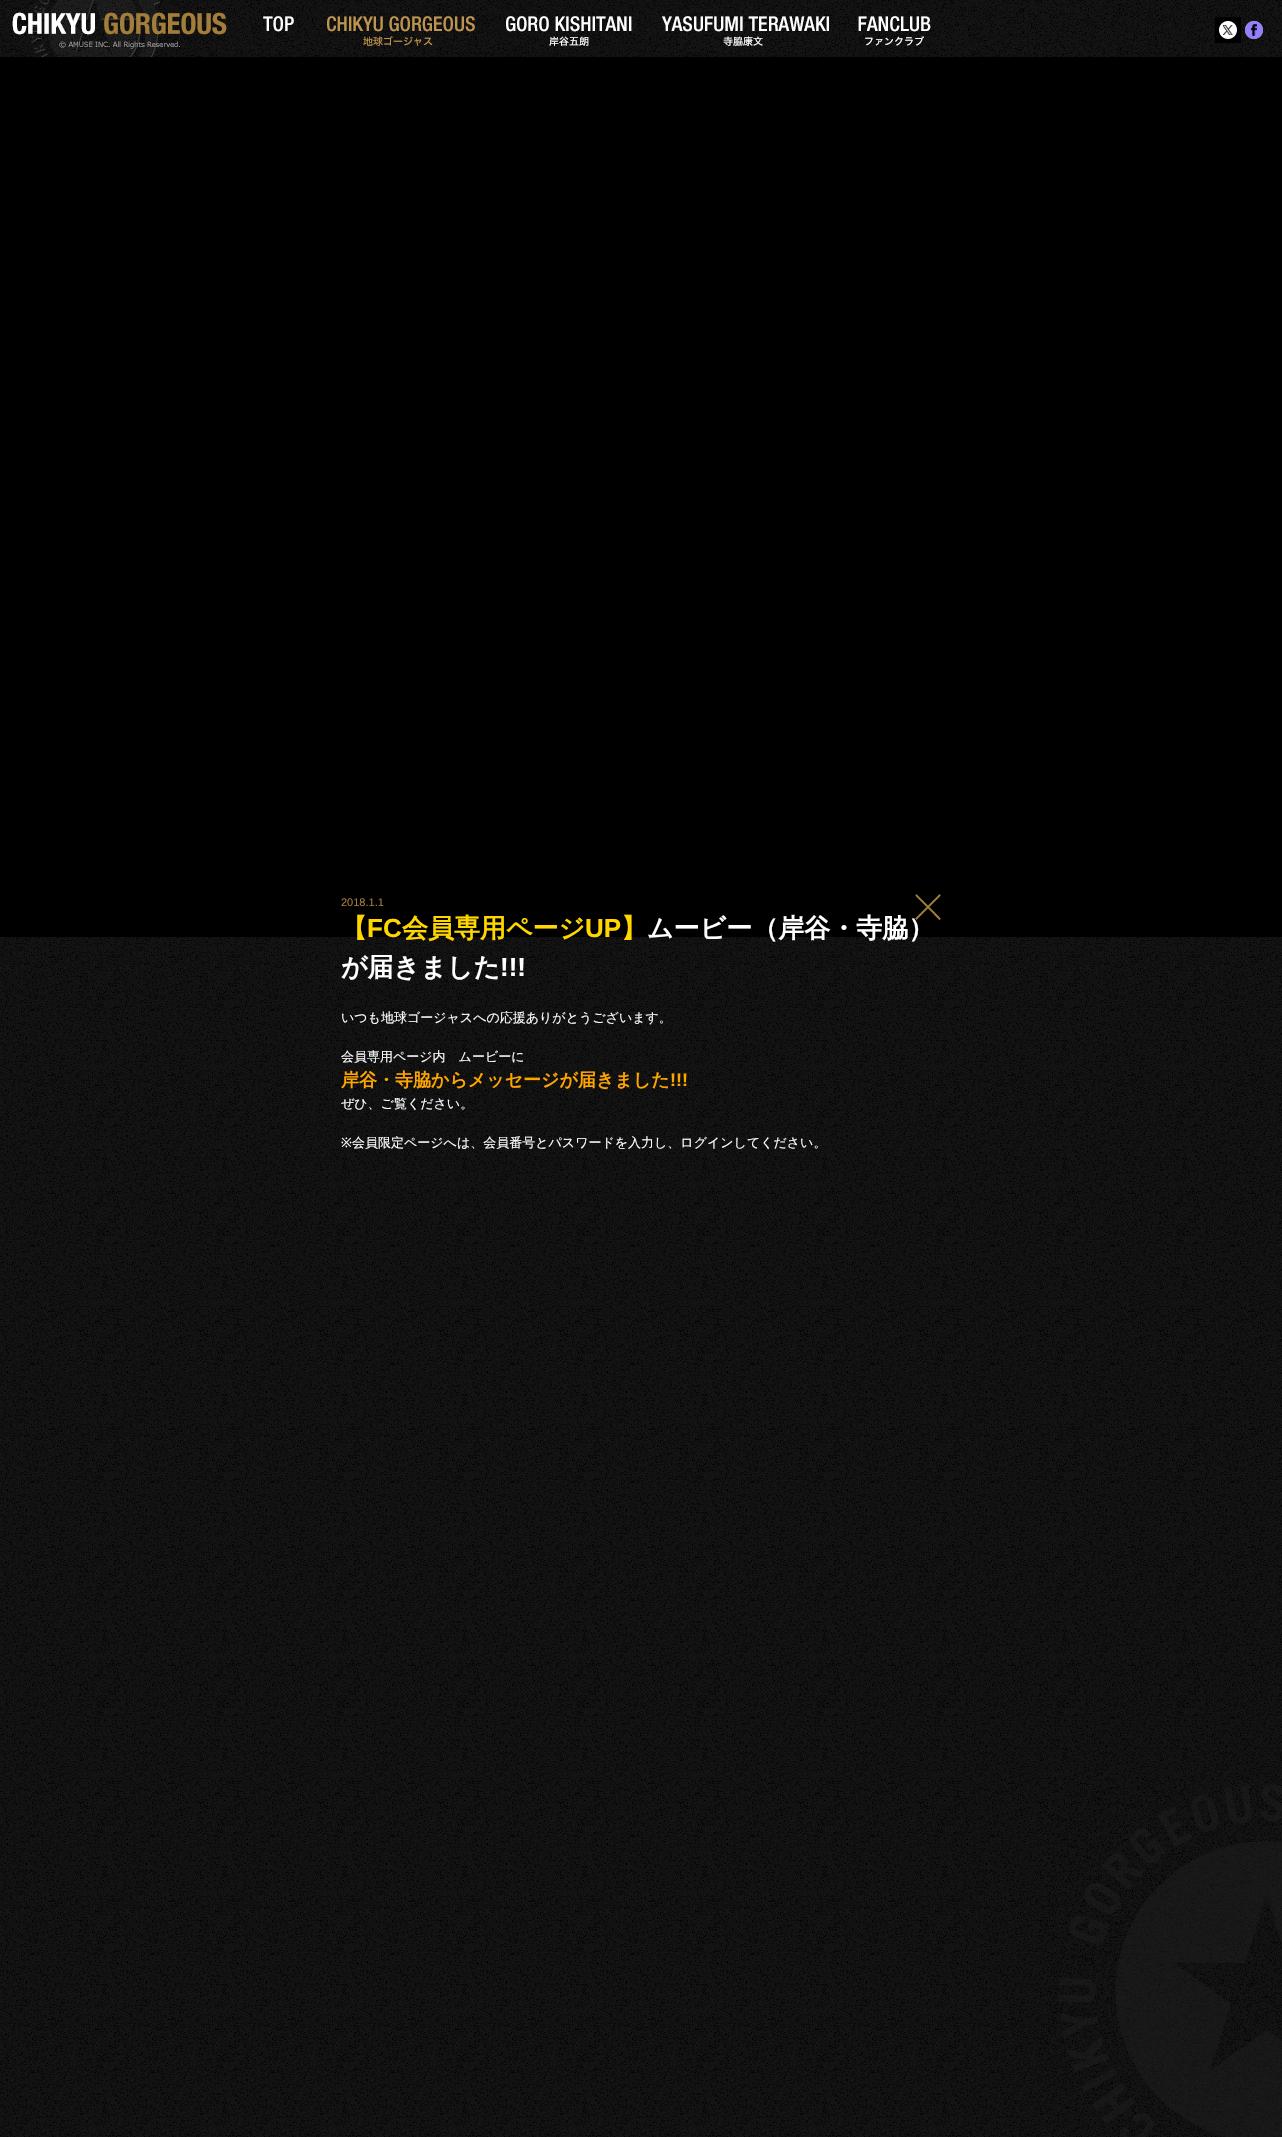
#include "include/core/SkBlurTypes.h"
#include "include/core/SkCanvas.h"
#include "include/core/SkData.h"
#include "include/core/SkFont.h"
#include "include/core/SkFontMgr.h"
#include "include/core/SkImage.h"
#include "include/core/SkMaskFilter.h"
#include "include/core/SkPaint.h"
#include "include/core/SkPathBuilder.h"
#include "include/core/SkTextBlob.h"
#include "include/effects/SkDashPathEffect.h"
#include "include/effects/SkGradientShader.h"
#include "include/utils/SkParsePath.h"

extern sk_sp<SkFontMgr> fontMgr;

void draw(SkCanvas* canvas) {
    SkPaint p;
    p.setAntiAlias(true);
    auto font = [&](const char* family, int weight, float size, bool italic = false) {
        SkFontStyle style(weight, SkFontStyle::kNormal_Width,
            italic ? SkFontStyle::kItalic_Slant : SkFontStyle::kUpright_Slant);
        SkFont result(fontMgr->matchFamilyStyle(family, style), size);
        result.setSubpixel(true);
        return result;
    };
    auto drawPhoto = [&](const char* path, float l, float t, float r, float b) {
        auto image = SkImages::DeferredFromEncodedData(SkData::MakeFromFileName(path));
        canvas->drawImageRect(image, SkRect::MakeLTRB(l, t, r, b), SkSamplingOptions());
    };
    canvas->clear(0xFF000000);
    drawPhoto("media/1.png", 0, 937, 1282, 2137);
    drawPhoto("media/2.png", 239, 0, 1282, 57);
    drawPhoto("media/3.png", 0, 0, 239, 57);
    drawPhoto("media/4.png", 249, 0, 307, 57);
    drawPhoto("media/5.png", 317, 0, 485, 57);
    drawPhoto("media/6.png", 495, 0, 642, 57);
    drawPhoto("media/7.png", 652, 0, 839, 57);
    drawPhoto("media/8.png", 849, 0, 939, 57);
    drawPhoto("media/9.png", 1215, 17, 1241, 43);
    drawPhoto("media/10.png", 1241, 17, 1267, 43);
    auto font1 = font("Liberation Sans", 400, 11);
    p.setColor(0xFFA37E3A);
    canvas->drawString("2018.1.1", 341, 906, font1, p);
    auto font2 = font("WenQuanYi Zen Hei", 700, 26);
    p.setColor(0xFFFFFFFF);
    canvas->drawString("ムービー（岸谷・寺脇）", 647, 937, font2, p);
    drawPhoto("media/11.png", 915, 894, 941, 920);
    p.setColor(0xFFFFD700);
    canvas->drawString("【", 341, 937, font2, p);
    auto font3 = font("Liberation Sans", 700, 26);
    canvas->drawString("FC", 367, 937, font3, p);
    canvas->drawString("会員専用ページ", 402, 937, font2, p);
    canvas->drawString("UP", 585, 937, font3, p);
    canvas->drawString("】", 621, 937, font2, p);
    p.setColor(0xFFFFFFFF);
    canvas->drawString("が届きました", 341, 976, font2, p);
    canvas->drawString("!!!", 500, 976, font3, p);
    auto font4 = font("WenQuanYi Zen Hei", 500, 13);
    canvas->drawString("いつも地球ゴージャスへの応援ありがとうございます。", 341, 1022, font4, p);
    canvas->drawString("会員専用ページ内　ムービーに", 341, 1061, font4, p);
    auto font5 = font("WenQuanYi Zen Hei", 700, 18);
    p.setColor(0xFFFFA500);
    canvas->drawString("岸谷・寺脇からメッセージが届きました", 341, 1086, font5, p);
    auto font6 = font("Liberation Sans", 700, 18);
    canvas->drawString("!!!", 670, 1086, font6, p);
    p.setColor(0xFFFFFFFF);
    canvas->drawString("ぜひ、ご覧ください。", 341, 1108, font4, p);
    auto font7 = font("Noto Sans", 400, 13);
    canvas->drawString("※", 341, 1147, font7, p);
    canvas->drawString("会員限定ページへは、会員番号とパスワードを入力し、ログインしてください。", 352, 1147, font4, p);
}
